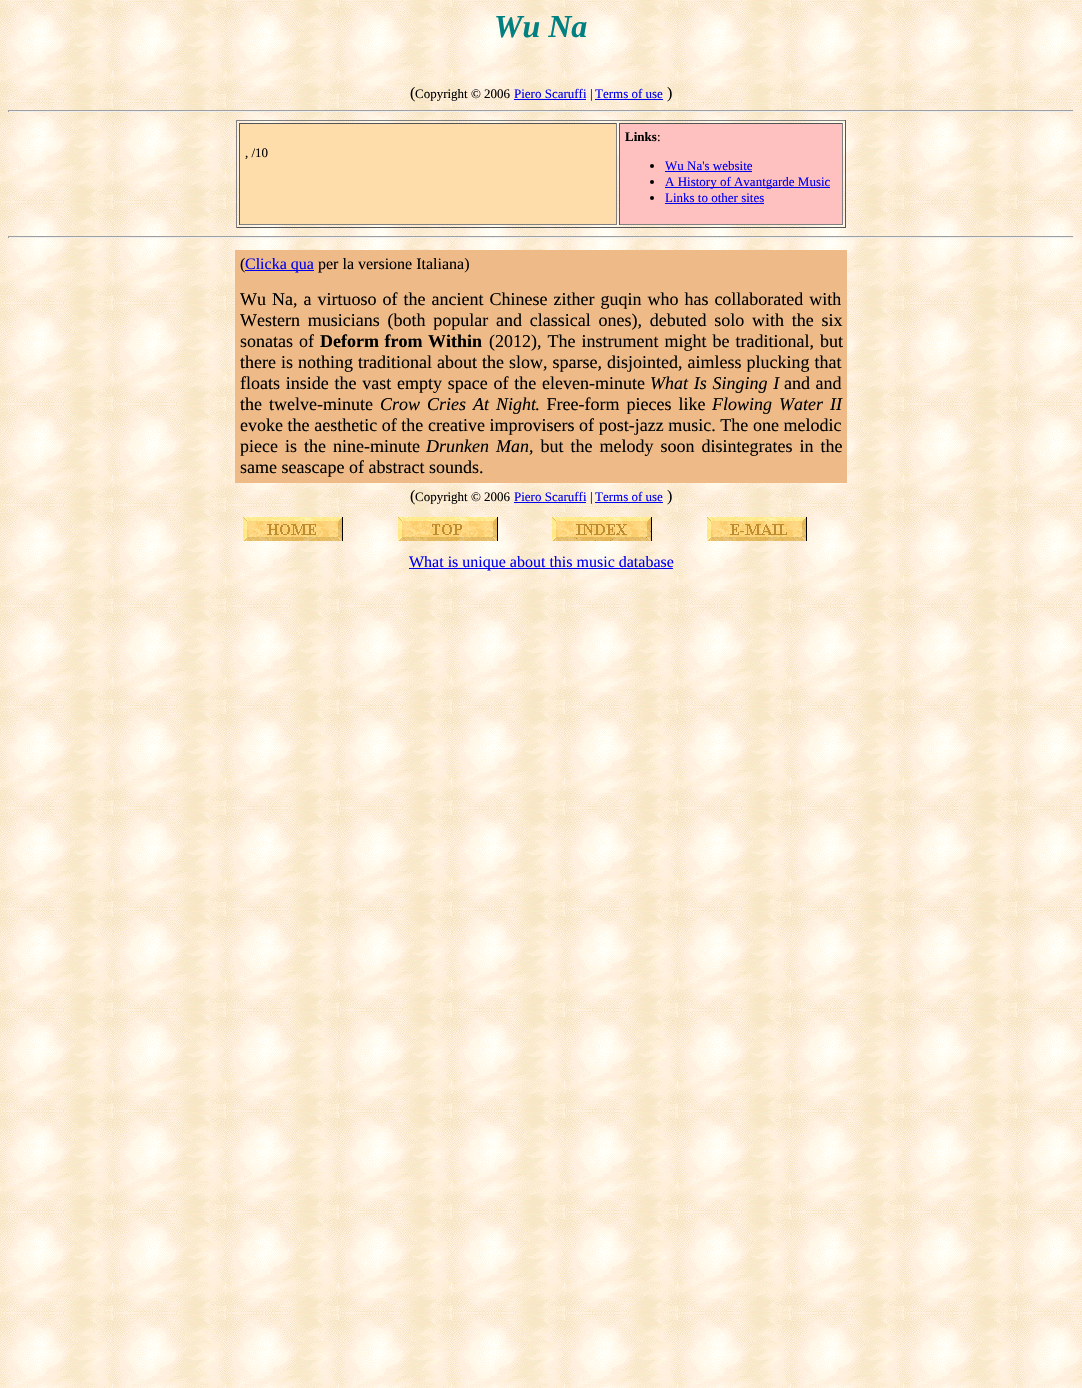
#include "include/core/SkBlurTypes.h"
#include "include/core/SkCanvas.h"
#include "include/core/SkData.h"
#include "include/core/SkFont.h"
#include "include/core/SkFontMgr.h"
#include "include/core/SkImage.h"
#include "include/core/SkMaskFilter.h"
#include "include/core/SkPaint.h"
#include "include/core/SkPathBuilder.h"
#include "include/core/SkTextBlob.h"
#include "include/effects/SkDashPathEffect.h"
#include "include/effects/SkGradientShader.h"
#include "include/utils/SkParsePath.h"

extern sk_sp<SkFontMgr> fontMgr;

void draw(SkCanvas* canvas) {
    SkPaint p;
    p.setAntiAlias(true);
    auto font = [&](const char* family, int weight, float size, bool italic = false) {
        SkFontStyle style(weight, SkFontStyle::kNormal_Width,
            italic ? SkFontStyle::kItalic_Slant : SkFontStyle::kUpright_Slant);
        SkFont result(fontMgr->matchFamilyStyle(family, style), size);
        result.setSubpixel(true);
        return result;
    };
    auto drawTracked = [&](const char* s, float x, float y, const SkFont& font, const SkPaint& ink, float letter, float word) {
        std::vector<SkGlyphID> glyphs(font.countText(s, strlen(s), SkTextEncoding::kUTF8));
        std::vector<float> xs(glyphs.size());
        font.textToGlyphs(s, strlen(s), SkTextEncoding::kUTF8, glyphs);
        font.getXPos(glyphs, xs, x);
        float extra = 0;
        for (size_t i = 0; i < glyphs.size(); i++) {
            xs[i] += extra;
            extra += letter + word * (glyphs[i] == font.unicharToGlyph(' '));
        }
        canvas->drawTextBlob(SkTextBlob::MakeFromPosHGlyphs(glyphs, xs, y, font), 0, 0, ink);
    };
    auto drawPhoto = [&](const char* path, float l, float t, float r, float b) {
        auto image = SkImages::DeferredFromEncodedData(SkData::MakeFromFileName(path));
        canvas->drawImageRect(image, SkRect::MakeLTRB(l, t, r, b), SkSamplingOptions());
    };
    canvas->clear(0xFFFFFFFF);
    drawPhoto("media/1.png", 0, 0, 1082, 1388);
    auto font1 = font("Liberation Serif", 700, 32, true);
    p.setColor(0xFF008080);
    canvas->drawString("Wu Na", 494, 37, font1, p);
    auto font2 = font("Liberation Serif", 400, 16);
    p.setColor(0xFF000000);
    canvas->drawString("(", 410, 98, font2, p);
    auto font3 = font("Liberation Serif", 400, 13);
    canvas->drawString("Copyright © 2006", 415, 98, font3, p);
    p.setColor(0xFF0000EE);
    canvas->drawRect(SkRect::MakeLTRB(514, 99, 586, 100), p);
    canvas->drawString("Piero Scaruffi", 514, 98, font3, p);
    p.setColor(0xFF000000);
    canvas->drawString("|", 590, 98, font3, p);
    p.setColor(0xFF0000EE);
    canvas->drawString("Terms of use", 595, 98, font3, p);
    canvas->drawRect(SkRect::MakeLTRB(595, 99, 663, 100), p);
    p.setColor(0xFF000000);
    canvas->drawString(")", 667, 98, font2, p);
    {
        const struct { float l, t, r, b; SkColor color; } items[] = {
            {8, 110, 1074, 111, 0xFF9F9F9F},
            {1073, 110, 1074, 112, 0xFFEEEEEE},
            {8, 111, 1074, 112, 0xFFEEEEEE},
            {8, 110, 9, 112, 0xFF9F9F9F},
            {236, 120, 846, 121, 0xFF808080},
            {845, 120, 846, 228, 0xFF555555},
            {236, 227, 846, 228, 0xFF555555},
            {236, 120, 237, 228, 0xFF808080},
            {240, 124, 616, 224, 0xFFFFDDAA},
            {239, 123, 617, 124, 0xFF555555},
            {616, 123, 617, 225, 0xFF808080},
            {239, 224, 617, 225, 0xFF808080},
            {239, 123, 240, 225, 0xFF555555},
        };
        for (auto [l, t, r, b, color] : items) {
            p.setColor(color);
            canvas->drawRect(SkRect::MakeLTRB(l, t, r, b), p);
        }
    }
    p.setColor(0xFF000000);
    canvas->drawString(", /10", 245, 157, font3, p);
    {
        const struct { float l, t, r, b; SkColor color; } items[] = {
            {620, 124, 842, 224, 0xFFFFC0C0},
            {619, 123, 843, 124, 0xFF555555},
            {842, 123, 843, 225, 0xFF808080},
            {619, 224, 843, 225, 0xFF808080},
            {619, 123, 620, 225, 0xFF555555},
        };
        for (auto [l, t, r, b, color] : items) {
            p.setColor(color);
            canvas->drawRect(SkRect::MakeLTRB(l, t, r, b), p);
        }
    }
    auto font4 = font("Liberation Serif", 700, 13);
    p.setColor(0xFF000000);
    canvas->drawString("Links", 625, 141, font4, p);
    canvas->drawString(":", 657, 141, font3, p);
    canvas->drawCircle(652, 166, 2, p);
    p.setColor(0xFF0000EE);
    canvas->drawString("Wu Na's website", 665, 170, font3, p);
    canvas->drawRect(SkRect::MakeLTRB(665, 171, 752, 172), p);
    p.setColor(0xFF000000);
    canvas->drawCircle(652, 182, 2, p);
    p.setColor(0xFF0000EE);
    canvas->drawRect(SkRect::MakeLTRB(665, 187, 830, 188), p);
    canvas->drawString("A History of Avantgarde Music", 665, 186, font3, p);
    p.setColor(0xFF000000);
    canvas->drawCircle(652, 198, 2, p);
    p.setColor(0xFF0000EE);
    canvas->drawString("Links to other sites", 665, 202, font3, p);
    {
        const struct { float l, t, r, b; SkColor color; } items[] = {
            {665, 203, 764, 204, 0xFF0000EE},
            {8, 236, 1074, 237, 0xFF9F9F9F},
            {1073, 236, 1074, 238, 0xFFEEEEEE},
            {8, 237, 1074, 238, 0xFFEEEEEE},
            {8, 236, 9, 238, 0xFF9F9F9F},
            {235, 250, 847, 483, 0xFFEEBB88},
        };
        for (auto [l, t, r, b, color] : items) {
            p.setColor(color);
            canvas->drawRect(SkRect::MakeLTRB(l, t, r, b), p);
        }
    }
    p.setColor(0xFF000000);
    canvas->drawString("(", 240, 269, font2, p);
    p.setColor(0xFF0000EE);
    canvas->drawRect(SkRect::MakeLTRB(245, 270, 314, 271), p);
    canvas->drawString("Clicka qua", 245, 269, font2, p);
    p.setColor(0xFF000000);
    canvas->drawString("per la versione Italiana)", 318, 269, font2, p);
    auto font5 = font("Liberation Serif", 400, 18);
    drawTracked("Wu Na, a virtuoso of the ancient Chinese zither guqin who has collaborated with", 240, 305, font5, p, 0, 1.5f);
    drawTracked("Western musicians (both popular and classical ones), debuted solo with the six", 240, 326, font5, p, 0, 3.25f);
    drawTracked("sonatas of", 240, 347, font5, p, 0, 1.5f);
    auto font6 = font("Liberation Serif", 700, 18);
    drawTracked("Deform from Within", 320, 347, font6, p, 0, 1);
    drawTracked("(2012), The instrument might be traditional, but", 489, 347, font5, p, 0, 1.5f);
    drawTracked("there is nothing traditional about the slow, sparse, disjointed, aimless plucking that", 240, 368, font5, p, 0, 0.5f);
    drawTracked("floats inside the vast empty space of the eleven-minute", 240, 389, font5, p, 0, 1.25f);
    auto font7 = font("Liberation Serif", 400, 18, true);
    drawTracked("What Is Singing I", 650, 389, font7, p, 0, 1.25f);
    drawTracked("and and", 784, 389, font5, p, 0, 1);
    drawTracked("the twelve-minute", 240, 410, font5, p, 0, 2.5f);
    drawTracked("Crow Cries At Night", 380, 410, font7, p, 0, 2.5f);
    drawTracked(". Free-form pieces like", 535, 410, font5, p, 0, 2.5f);
    drawTracked("Flowing Water II", 712, 410, font7, p, 0, 2.5f);
    drawTracked("evoke the aesthetic of the creative improvisers of post-jazz music. The one melodic", 240, 431, font5, p, 0, 0.1f);
    drawTracked("piece is the nine-minute", 240, 452, font5, p, 0, 2.5f);
    drawTracked("Drunken Man", 426, 452, font7, p, 0, 2.5f);
    drawTracked(", but the melody soon disintegrates in the", 529, 452, font5, p, 0, 2.5f);
    canvas->drawString("same seascape of abstract sounds.", 240, 473, font5, p);
    canvas->drawString("(", 410, 501, font2, p);
    canvas->drawString("Copyright © 2006", 415, 501, font3, p);
    p.setColor(0xFF0000EE);
    canvas->drawRect(SkRect::MakeLTRB(514, 502, 586, 503), p);
    canvas->drawString("Piero Scaruffi", 514, 501, font3, p);
    p.setColor(0xFF000000);
    canvas->drawString("|", 590, 501, font3, p);
    p.setColor(0xFF0000EE);
    canvas->drawString("Terms of use", 595, 501, font3, p);
    canvas->drawRect(SkRect::MakeLTRB(595, 502, 663, 503), p);
    p.setColor(0xFF000000);
    canvas->drawString(")", 667, 501, font2, p);
    drawPhoto("media/2.png", 243, 517, 343, 541);
    drawPhoto("media/3.png", 398, 517, 498, 541);
    drawPhoto("media/4.png", 552, 517, 652, 541);
    drawPhoto("media/5.png", 707, 517, 807, 541);
    p.setColor(0xFF0000EE);
    canvas->drawRect(SkRect::MakeLTRB(409, 568, 673, 569), p);
    canvas->drawString("What is unique about this music database", 409, 567, font2, p);
}
